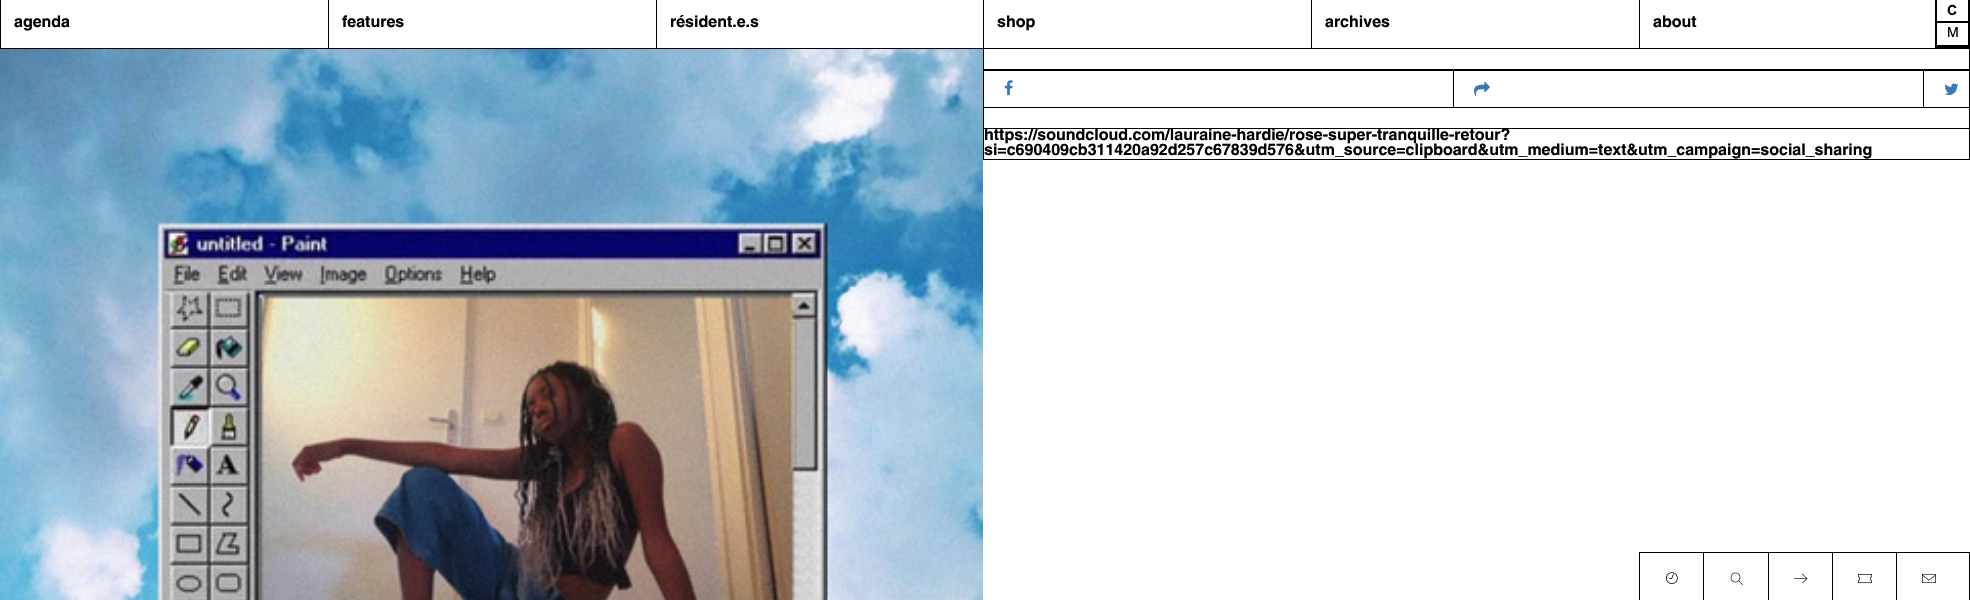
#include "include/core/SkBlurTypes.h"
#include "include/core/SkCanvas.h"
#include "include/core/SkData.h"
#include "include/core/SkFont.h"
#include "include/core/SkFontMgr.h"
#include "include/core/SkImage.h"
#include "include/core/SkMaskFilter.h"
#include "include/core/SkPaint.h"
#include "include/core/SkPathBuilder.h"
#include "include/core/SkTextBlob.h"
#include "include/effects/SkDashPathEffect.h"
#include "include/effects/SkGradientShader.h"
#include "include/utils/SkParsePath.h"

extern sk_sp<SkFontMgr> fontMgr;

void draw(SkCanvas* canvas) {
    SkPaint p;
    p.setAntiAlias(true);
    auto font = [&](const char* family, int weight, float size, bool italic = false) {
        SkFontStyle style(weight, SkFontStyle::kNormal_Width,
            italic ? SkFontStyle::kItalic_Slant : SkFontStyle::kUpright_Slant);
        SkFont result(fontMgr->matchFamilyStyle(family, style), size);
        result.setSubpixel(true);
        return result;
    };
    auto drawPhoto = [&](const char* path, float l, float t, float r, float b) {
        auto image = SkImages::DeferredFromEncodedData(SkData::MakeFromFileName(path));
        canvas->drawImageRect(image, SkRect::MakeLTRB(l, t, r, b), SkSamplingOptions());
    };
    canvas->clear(0xFFFFFFFF);
    p.setColor(0xFF000000);
    canvas->drawRect(SkRect::MakeLTRB(0, 48, 983, 49), p);
    canvas->drawRect(SkRect::MakeLTRB(0, 0, 1, 49), p);
    auto font1 = font("Helvetica", 700, 16);
    canvas->drawString("agenda", 14, 27, font1, p);
    canvas->drawRect(SkRect::MakeLTRB(328, 0, 329, 49), p);
    canvas->drawString("features", 342, 27, font1, p);
    canvas->drawRect(SkRect::MakeLTRB(656, 0, 657, 49), p);
    canvas->drawString("résident.e.s", 670, 27, font1, p);
    canvas->drawRect(SkRect::MakeLTRB(983, 0, 984, 49), p);
    canvas->drawString("shop", 997, 27, font1, p);
    canvas->drawRect(SkRect::MakeLTRB(1311, 0, 1312, 49), p);
    canvas->drawString("archives", 1325, 27, font1, p);
    canvas->drawRect(SkRect::MakeLTRB(1639, 0, 1640, 49), p);
    canvas->drawString("about", 1653, 27, font1, p);
    {
        const struct { float l, t, r, b; SkColor color; } items[] = {
            {1968, 0, 1970, 48, 0xFF000000},
            {1935, 21, 1970, 23, 0xFF000000},
            {1935, 0, 1937, 23, 0xFF000000},
        };
        for (auto [l, t, r, b, color] : items) {
            p.setColor(color);
            canvas->drawRect(SkRect::MakeLTRB(l, t, r, b), p);
        }
    }
    auto font2 = font("Arial", 700, 14);
    canvas->drawString("C", 1947, 15, font2, p);
    canvas->drawRect(SkRect::MakeLTRB(1935, 45, 1970, 48), p);
    canvas->drawRect(SkRect::MakeLTRB(1935, 23, 1937, 48), p);
    auto font3 = font("Helvetica", 400, 14);
    canvas->drawString("M", 1947, 37, font3, p);
    drawPhoto("media/1.png", 0, 49, 983, 600);
    {
        const struct { float l, t, r, b; SkColor color; } items[] = {
            {983, 48, 1970, 49, 0xFF000000},
            {1969, 70, 1970, 108, 0xFF000000},
            {1923, 107, 1970, 108, 0xFF000000},
            {1923, 70, 1924, 108, 0xFF000000},
            {1453, 107, 1924, 108, 0xFF000000},
            {1453, 70, 1454, 108, 0xFF000000},
            {983, 107, 1454, 108, 0xFF000000},
            {983, 70, 984, 108, 0xFF000000},
            {983, 69, 1970, 71, 0xFF000000},
            {1969, 48, 1970, 70, 0xFF000000},
            {983, 48, 984, 70, 0xFF000000},
        };
        for (auto [l, t, r, b, color] : items) {
            p.setColor(color);
            canvas->drawRect(SkRect::MakeLTRB(l, t, r, b), p);
        }
    }
    drawPhoto("media/2.png", 1004, 80, 1013, 96);
    drawPhoto("media/3.png", 1474, 81, 1490, 97);
    drawPhoto("media/4.png", 1944, 83, 1959, 95);
    {
        const struct { float l, t, r, b; SkColor color; } items[] = {
            {983, 128, 1970, 129, 0xFF000000},
            {1969, 107, 1970, 160, 0xFF000000},
            {983, 159, 1970, 160, 0xFF000000},
            {983, 107, 984, 160, 0xFF000000},
        };
        for (auto [l, t, r, b, color] : items) {
            p.setColor(color);
            canvas->drawRect(SkRect::MakeLTRB(l, t, r, b), p);
        }
    }
    canvas->drawString("https://soundcloud.com/lauraine-hardie/rose-super-tranquille-retour?", 984, 140, font1, p);
    canvas->drawString("si=c690409cb311420a92d257c67839d576&utm_source=clipboard&utm_medium=text&utm_campaign=social_sharing", 984, 155, font1, p);
    {
        const struct { float l, t, r, b; SkColor color; } items[] = {
            {1639, 552, 1970, 553, 0xFF000000},
            {1969, 552, 1970, 600, 0xFF000000},
            {1639, 553, 1640, 600, 0xFF000000},
        };
        for (auto [l, t, r, b, color] : items) {
            p.setColor(color);
            canvas->drawRect(SkRect::MakeLTRB(l, t, r, b), p);
        }
    }
    drawPhoto("media/5.png", 1666, 572, 1678, 584);
    canvas->drawRect(SkRect::MakeLTRB(1703, 553, 1704, 600), p);
    drawPhoto("media/6.png", 1730, 572, 1743, 585);
    canvas->drawRect(SkRect::MakeLTRB(1768, 553, 1769, 600), p);
    drawPhoto("media/7.png", 1794, 573, 1808, 584);
    canvas->drawRect(SkRect::MakeLTRB(1832, 553, 1833, 600), p);
    drawPhoto("media/8.png", 1858, 574, 1872, 584);
    canvas->drawRect(SkRect::MakeLTRB(1896, 553, 1897, 600), p);
    drawPhoto("media/9.png", 1922, 574, 1936, 583);
}
